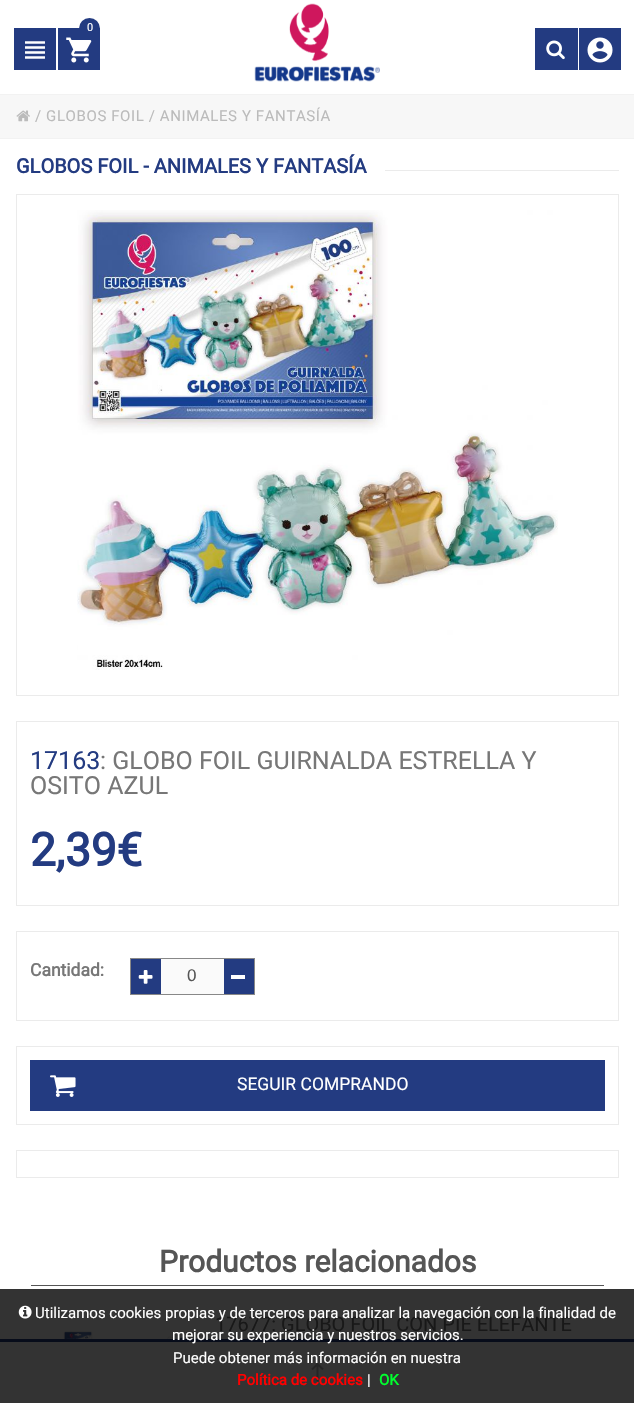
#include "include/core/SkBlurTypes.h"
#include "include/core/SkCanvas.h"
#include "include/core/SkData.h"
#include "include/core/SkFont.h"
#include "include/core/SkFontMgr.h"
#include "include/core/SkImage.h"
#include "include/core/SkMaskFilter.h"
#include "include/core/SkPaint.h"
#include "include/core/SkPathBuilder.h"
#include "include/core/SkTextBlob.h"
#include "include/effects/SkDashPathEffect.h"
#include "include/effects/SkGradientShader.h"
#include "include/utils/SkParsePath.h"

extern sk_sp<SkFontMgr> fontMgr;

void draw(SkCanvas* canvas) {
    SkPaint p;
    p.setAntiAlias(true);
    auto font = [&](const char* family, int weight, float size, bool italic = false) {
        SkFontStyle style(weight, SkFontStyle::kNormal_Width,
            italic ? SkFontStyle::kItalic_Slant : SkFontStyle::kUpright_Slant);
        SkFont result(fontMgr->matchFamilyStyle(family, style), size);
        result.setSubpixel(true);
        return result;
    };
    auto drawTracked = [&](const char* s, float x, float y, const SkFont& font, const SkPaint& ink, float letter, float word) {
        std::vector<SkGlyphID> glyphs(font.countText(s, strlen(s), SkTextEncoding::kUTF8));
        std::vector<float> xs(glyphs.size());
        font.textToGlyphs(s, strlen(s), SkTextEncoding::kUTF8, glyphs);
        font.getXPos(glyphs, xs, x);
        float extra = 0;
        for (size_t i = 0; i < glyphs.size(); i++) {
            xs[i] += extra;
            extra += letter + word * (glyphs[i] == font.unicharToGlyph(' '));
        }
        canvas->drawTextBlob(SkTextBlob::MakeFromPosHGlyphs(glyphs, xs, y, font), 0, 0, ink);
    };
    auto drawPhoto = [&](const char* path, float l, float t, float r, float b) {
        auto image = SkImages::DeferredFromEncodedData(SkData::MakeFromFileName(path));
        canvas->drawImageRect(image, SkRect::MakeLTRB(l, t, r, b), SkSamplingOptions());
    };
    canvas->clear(0xFFFFFFFF);
    p.setColor(0xFF333333);
    canvas->drawRect(SkRect::MakeLTRB(0, 1289, 634, 1339), p);
    p.setColor(0xFF233B81);
    canvas->drawRect(SkRect::MakeLTRB(58, 28, 100, 70), p);
    drawPhoto("media/1.png", 66, 37, 92, 63);
    canvas->drawCircle(89.5f, 28.5f, 10.5f, p);
    auto font1 = font("Roboto", 400, 11);
    p.setColor(0xFFFFFFFF);
    canvas->drawString("0", 87, 31, font1, p);
    p.setColor(0xFF233B81);
    canvas->drawRect(SkRect::MakeLTRB(14, 28, 56, 70), p);
    drawPhoto("media/2.png", 25, 41, 45, 59);
    drawPhoto("media/3.png", 254, 3, 380, 82);
    canvas->drawRect(SkRect::MakeLTRB(535, 28, 578, 70), p);
    drawPhoto("media/4.png", 546, 40, 565, 60);
    canvas->drawRect(SkRect::MakeLTRB(579, 28, 621, 70), p);
    drawPhoto("media/5.png", 587, 37, 613, 63);
    {
        const struct { float l, t, r, b; SkColor color; } items[] = {
            {0, 95, 634, 138, 0xFFF7F7F7},
            {0, 94, 634, 95, 0xFFF2F2F2},
            {0, 138, 634, 139, 0xFFF2F2F2},
        };
        for (auto [l, t, r, b, color] : items) {
            p.setColor(color);
            canvas->drawRect(SkRect::MakeLTRB(l, t, r, b), p);
        }
    }
    drawPhoto("media/6.png", 16, 110, 30, 122);
    auto font2 = font("Roboto", 400, 15);
    p.setColor(0xFFBBBBBB);
    drawTracked("/ GLOBOS FOIL / ANIMALES Y FANTASÍA", 35, 121, font2, p, 0.6f, 0);
    auto font3 = font("Roboto", 700, 20);
    p.setColor(0xFF233B81);
    canvas->drawString("GLOBOS FOIL - ANIMALES Y FANTASÍA", 16, 173, font3, p);
    p.setColor(0xFFEBEBEB);
    canvas->drawRect(SkRect::MakeLTRB(385, 170, 619, 171), p);
    p.setStyle(SkPaint::kStroke_Style);
    p.setStrokeWidth(1);
    canvas->drawRect(SkRect::MakeLTRB(16.5f, 194.5f, 618.5f, 695.5f), p);
    drawPhoto("media/7.png", 77, 210, 558, 670);
    canvas->drawRect(SkRect::MakeLTRB(16.5f, 721.5f, 618.5f, 905.5f), p);
    auto font4 = font("Roboto", 400, 25);
    p.setStyle(SkPaint::kFill_Style);
    p.setColor(0xFF233B81);
    canvas->drawString("17163", 30, 769, font4, p);
    p.setColor(0xFF777777);
    canvas->drawString(": GLOBO FOIL GUIRNALDA ESTRELLA Y", 100, 769, font4, p);
    canvas->drawString("OSITO AZUL", 30, 794, font4, p);
    auto font5 = font("Roboto", 700, 46);
    p.setColor(0xFF233B81);
    canvas->drawString("2,39€", 30, 866, font5, p);
    p.setStyle(SkPaint::kStroke_Style);
    p.setColor(0xFFEBEBEB);
    canvas->drawRect(SkRect::MakeLTRB(16.5f, 931.5f, 618.5f, 1020.5f), p);
    auto font6 = font("Roboto", 700, 17.5f);
    p.setStyle(SkPaint::kFill_Style);
    p.setColor(0xFF777777);
    canvas->drawString("Cantidad:", 30, 976, font6, p);
    {
        const struct { float l, t, r, b; SkColor color; } items[] = {
            {131, 959, 161, 994, 0xFF233B81},
            {130, 958, 255, 959, 0xFF888888},
            {130, 994, 224, 995, 0xFF888888},
            {130, 958, 131, 995, 0xFF888888},
        };
        for (auto [l, t, r, b, color] : items) {
            p.setColor(color);
            canvas->drawRect(SkRect::MakeLTRB(l, t, r, b), p);
        }
    }
    drawPhoto("media/8.png", 138, 970, 153, 984);
    p.setColor(0xFFFAFAFA);
    canvas->drawRect(SkRect::MakeLTRB(161, 959, 224, 994), p);
    auto font7 = font("Liberation Sans", 400, 17);
    p.setColor(0xFF555555);
    canvas->drawString("0", 187, 981, font7, p);
    {
        const struct { float l, t, r, b; SkColor color; } items[] = {
            {224, 959, 254, 994, 0xFF233B81},
            {254, 958, 255, 995, 0xFF888888},
            {224, 994, 255, 995, 0xFF888888},
            {231, 975, 245, 979, 0xFFFFFFFF},
        };
        for (auto [l, t, r, b, color] : items) {
            p.setColor(color);
            canvas->drawRect(SkRect::MakeLTRB(l, t, r, b), p);
        }
    }
    p.setStyle(SkPaint::kStroke_Style);
    p.setColor(0xFFEBEBEB);
    canvas->drawRect(SkRect::MakeLTRB(16.5f, 1046.5f, 618.5f, 1124.5f), p);
    p.setStyle(SkPaint::kFill_Style);
    p.setColor(0xFF233B81);
    canvas->drawRect(SkRect::MakeLTRB(30, 1060, 605, 1111), p);
    drawPhoto("media/9.png", 50, 1075, 76, 1097);
    auto font8 = font("Roboto", 400, 17.5f);
    p.setColor(0xFFFFFFFF);
    canvas->drawString("SEGUIR COMPRANDO", 237, 1090, font8, p);
    p.setStyle(SkPaint::kStroke_Style);
    p.setColor(0xFFEBEBEB);
    canvas->drawRect(SkRect::MakeLTRB(16.5f, 1150.5f, 618.5f, 1177.5f), p);
    p.setStyle(SkPaint::kFill_Style);
    p.setColor(0xFF555555);
    canvas->drawRect(SkRect::MakeLTRB(31, 1285, 604, 1286), p);
    auto font9 = font("Roboto", 700, 30);
    canvas->drawString("Productos relacionados", 159, 1272, font9, p);
    auto font10 = font("Roboto", 400, 20);
    p.setColor(0xFF181818);
    canvas->drawString("17677: GLOBO FOIL CON PIE ELEFANTE", 215, 1331, font10, p);
    drawPhoto("media/10.png", 62, 1331, 195, 1339);
    drawPhoto("media/11.png", 18, 1305, 32, 1319);
    p.setColor(0xFFFFFFFF);
    canvas->drawString("Utilizamos cookies propias y de terceros para analizar la navegación con la finalidad de", 35, 1318, font2, p);
    p.setColor(0xFF333333);
    canvas->drawRect(SkRect::MakeLTRB(0, 1342, 634, 1403), p);
    p.setColor(0xFF070C1A);
    canvas->drawRect(SkRect::MakeLTRB(0, 1339, 634, 1342), p);
    p.setColor(0xFFFFFFFF);
    canvas->drawString("mejorar su experiencia y nuestros servicios.", 172, 1340, font2, p);
    drawPhoto("media/12.png", 311, 1362, 324, 1382);
    canvas->drawString("Puede obtener más información en nuestra", 173, 1363, font2, p);
    auto font11 = font("Roboto", 700, 15);
    p.setColor(0xFFFF0000);
    canvas->drawString("Política de cookies", 237, 1385, font11, p);
    p.setColor(0xFFFFFFFF);
    canvas->drawString("|", 367, 1385, font2, p);
    p.setColor(0xFF00FF2E);
    canvas->drawString("OK", 379, 1385, font11, p);
}
